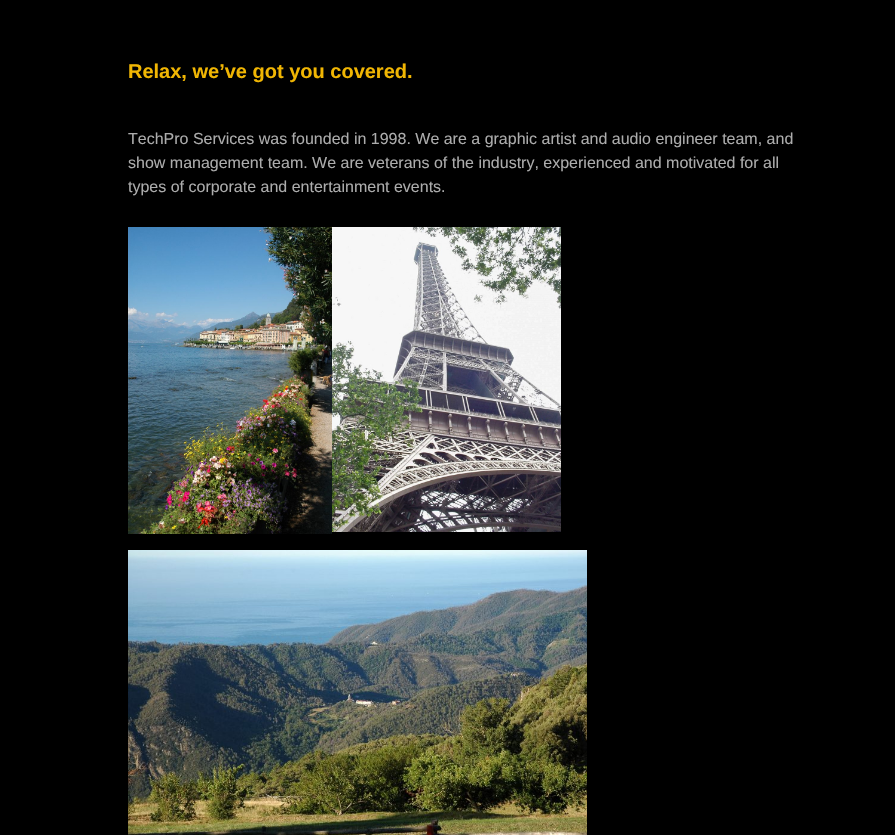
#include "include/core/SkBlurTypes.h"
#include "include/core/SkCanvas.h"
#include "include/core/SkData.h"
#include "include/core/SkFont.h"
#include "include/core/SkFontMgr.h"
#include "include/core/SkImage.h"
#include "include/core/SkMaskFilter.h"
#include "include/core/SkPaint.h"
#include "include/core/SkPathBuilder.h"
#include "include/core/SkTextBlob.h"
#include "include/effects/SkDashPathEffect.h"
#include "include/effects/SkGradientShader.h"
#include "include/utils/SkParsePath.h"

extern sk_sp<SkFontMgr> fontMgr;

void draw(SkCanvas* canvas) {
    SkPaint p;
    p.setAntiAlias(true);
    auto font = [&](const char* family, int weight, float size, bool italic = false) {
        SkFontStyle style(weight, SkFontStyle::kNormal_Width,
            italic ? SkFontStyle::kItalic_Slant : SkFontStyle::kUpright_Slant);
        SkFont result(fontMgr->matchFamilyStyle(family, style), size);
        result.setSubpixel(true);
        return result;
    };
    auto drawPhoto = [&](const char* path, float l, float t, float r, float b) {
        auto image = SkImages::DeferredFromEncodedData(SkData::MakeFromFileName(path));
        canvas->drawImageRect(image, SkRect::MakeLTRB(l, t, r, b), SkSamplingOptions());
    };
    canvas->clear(0xFF000000);
    auto font1 = font("Liberation Sans", 700, 20);
    p.setColor(0xFFF1B603);
    canvas->drawString("Relax, we’ve got you covered.", 128, 78, font1, p);
    auto font2 = font("Liberation Sans", 400, 16);
    p.setColor(0xFFACACAC);
    {
        const struct { const char* s; float x, y; } items[] = {
            {"TechPro Services was founded in 1998. We are a graphic artist and audio engineer team, and", 128, 144},
            {"show management team. We are veterans of the industry, experienced and motivated for all", 128, 168},
            {"types of corporate and entertainment events.", 128, 192},
        };
        for (auto [s, x, y] : items) {
            canvas->drawString(s, x, y, font2, p);
        }
    }
    drawPhoto("media/1.png", 128, 227, 332, 534);
    drawPhoto("media/2.png", 332, 227, 561, 532);
    drawPhoto("media/3.png", 128, 550, 587, 835);
}
